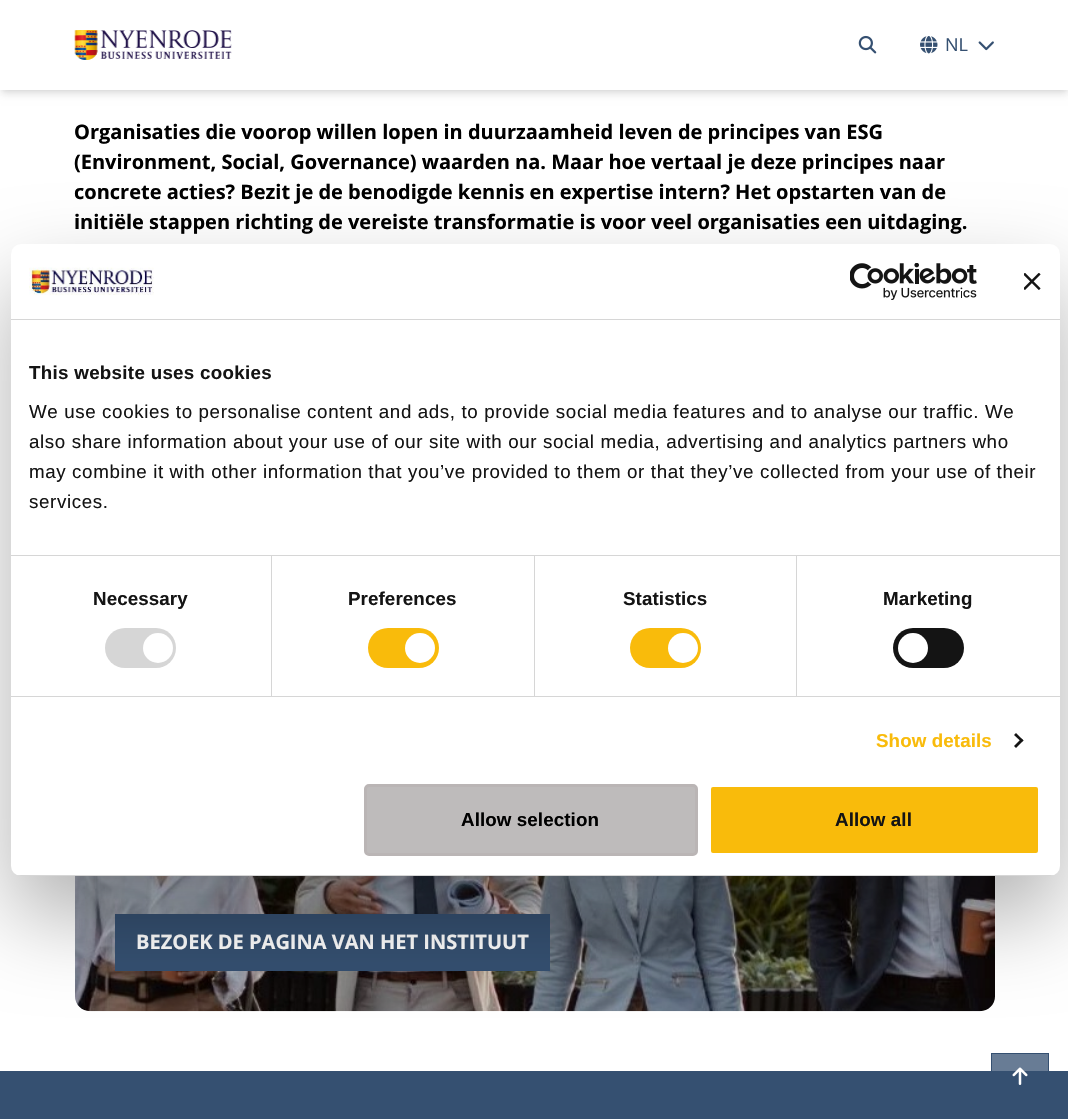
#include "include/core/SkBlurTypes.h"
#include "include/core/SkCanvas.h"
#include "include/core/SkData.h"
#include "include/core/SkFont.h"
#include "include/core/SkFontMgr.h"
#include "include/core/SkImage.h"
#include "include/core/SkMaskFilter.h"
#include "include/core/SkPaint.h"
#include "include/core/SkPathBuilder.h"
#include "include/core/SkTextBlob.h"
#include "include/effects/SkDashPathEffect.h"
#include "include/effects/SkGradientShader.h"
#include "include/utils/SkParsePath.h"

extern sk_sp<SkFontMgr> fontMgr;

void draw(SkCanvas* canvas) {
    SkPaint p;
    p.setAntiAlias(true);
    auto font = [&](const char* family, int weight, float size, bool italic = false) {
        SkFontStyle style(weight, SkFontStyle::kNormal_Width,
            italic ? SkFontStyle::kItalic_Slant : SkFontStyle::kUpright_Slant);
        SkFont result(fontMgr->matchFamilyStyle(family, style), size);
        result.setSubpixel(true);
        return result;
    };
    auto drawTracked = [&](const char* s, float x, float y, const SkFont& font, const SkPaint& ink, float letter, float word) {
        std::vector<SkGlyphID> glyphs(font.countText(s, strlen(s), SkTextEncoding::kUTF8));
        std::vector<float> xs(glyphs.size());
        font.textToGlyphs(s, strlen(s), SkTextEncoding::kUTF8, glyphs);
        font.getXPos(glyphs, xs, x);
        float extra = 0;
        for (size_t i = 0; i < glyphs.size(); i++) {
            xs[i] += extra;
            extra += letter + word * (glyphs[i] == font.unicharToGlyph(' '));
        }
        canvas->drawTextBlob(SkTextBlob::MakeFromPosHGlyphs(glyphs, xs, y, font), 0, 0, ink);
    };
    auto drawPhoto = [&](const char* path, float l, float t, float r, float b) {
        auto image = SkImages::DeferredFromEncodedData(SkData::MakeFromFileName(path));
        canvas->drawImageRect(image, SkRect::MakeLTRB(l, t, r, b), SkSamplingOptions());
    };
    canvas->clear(0xFFFFFFFF);
    p.setColor(0xFF687C95);
    canvas->drawRect(SkRect::MakeLTRB(992, 1054, 1048, 1071), p);
    p.setColor(0x1A000000);
    p.setMaskFilter(SkMaskFilter::MakeBlur(kNormal_SkBlurStyle, 2.5f));
    canvas->drawRect(SkRect::MakeLTRB(3, 5, 1066, 90), p);
    p.setMaskFilter(nullptr);
    p.setMaskFilter(SkMaskFilter::MakeBlur(kNormal_SkBlurStyle, 4));
    canvas->drawRect(SkRect::MakeLTRB(1, 6, 1068, 94), p);
    p.setMaskFilter(nullptr);
    p.setColor(0xFFFFFFFF);
    canvas->drawRect(SkRect::MakeLTRB(0, 0, 1068, 90), p);
    drawPhoto("media/1.png", 74, 30, 232, 60);
    drawPhoto("media/2.png", 858, 35, 877, 54);
    drawPhoto("media/3.png", 920, 36, 938, 54);
    auto font1 = font("Open Sans", 400, 18);
    p.setColor(0xFF355071);
    canvas->drawString("NL", 945, 51, font1, p);
    drawPhoto("media/4.png", 978, 41, 994, 51);
    auto font2 = font("Open Sans", 700, 20);
    p.setColor(0xFF000000);
    {
        const struct { const char* s; float x, y; } items[] = {
            {"Organisaties die voorop willen lopen in duurzaamheid leven de principes van ESG", 74, 139},
            {"(Environment, Social, Governance) waarden na. Maar hoe vertaal je deze principes naar", 74, 169},
            {"concrete acties? Bezit je de benodigde kennis en expertise intern? Het opstarten van de", 74, 199},
            {"initiële stappen richting de vereiste transformatie is voor veel organisaties een uitdaging.", 74, 229},
        };
        for (auto [s, x, y] : items) {
            canvas->drawString(s, x, y, font2, p);
        }
    }
    drawPhoto("media/5.png", 75, 876, 995, 1012);
    p.setColor(0x33000000);
    canvas->drawRoundRect(SkRect::MakeLTRB(75, 731, 995, 1011), 15, 15, p);
    p.setColor(0xFF355071);
    canvas->drawRect(SkRect::MakeLTRB(115, 914, 550, 971), p);
    p.setColor(0xFFFFFFFF);
    canvas->drawString("BEZOEK DE PAGINA VAN HET INSTITUUT", 136, 949, font2, p);
    p.setColor(0x4D000000);
    p.setMaskFilter(SkMaskFilter::MakeBlur(kNormal_SkBlurStyle, 42.5f));
    canvas->drawRoundRect(SkRect::MakeLTRB(11, 284, 1060, 916), 10, 10, p);
    p.setMaskFilter(nullptr);
    p.setColor(0xFFFFFFFF);
    canvas->drawRoundRect(SkRect::MakeLTRB(11, 244, 1060, 876), 10, 10, p);
    p.setColor(0xFFD6D6D6);
    canvas->drawRect(SkRect::MakeLTRB(11, 319, 1060, 320), p);
    drawPhoto("media/6.png", 29, 267, 154, 296);
    drawPhoto("media/7.png", 850, 263, 977, 300);
    drawPhoto("media/8.png", 1024, 273, 1041, 290);
    canvas->drawRect(SkRect::MakeLTRB(11, 555, 1060, 556), p);
    auto font3 = font("Liberation Sans", 700, 18.75f);
    p.setColor(0xFF141414);
    drawTracked("This website uses cookies", 29, 379, font3, p, 0.3f, 0);
    auto font4 = font("Liberation Sans", 400, 18.75f);
    {
        const struct { const char* s; float x, y; } items[] = {
            {"We use cookies to personalise content and ads, to provide social media features and to analyse our traffic. We", 29, 418},
            {"also share information about your use of our site with our social media, advertising and analytics partners who", 29, 448},
            {"may combine it with other information that you’ve provided to them or that they’ve collected from your use of their", 29, 478},
            {"services.", 29, 508},
        };
        for (auto [s, x, y] : items) {
            drawTracked(s, x, y, font4, p, 0.62f, 0);
        }
    }
    p.setColor(0xFFD6D6D6);
    canvas->drawRect(SkRect::MakeLTRB(11, 696, 1060, 697), p);
    canvas->drawRect(SkRect::MakeLTRB(271, 556, 272, 696), p);
    p.setColor(0xFF141414);
    drawTracked("Necessary", 93, 605, font3, p, 0.1f, 0);
    p.setColor(0xFFD6D6D6);
    canvas->drawRoundRect(SkRect::MakeLTRB(105, 628, 176, 668), 20, 20, p);
    p.setColor(0xFFFFFFFF);
    canvas->drawCircle(158, 648, 15, p);
    p.setColor(0xFFD6D6D6);
    canvas->drawRect(SkRect::MakeLTRB(534, 556, 535, 696), p);
    p.setColor(0xFF141414);
    drawTracked("Preferences", 348, 605, font3, p, 0.1f, 0);
    p.setColor(0xFFF9BB0B);
    canvas->drawRoundRect(SkRect::MakeLTRB(368, 628, 439, 668), 20, 20, p);
    p.setColor(0xFFFFFFFF);
    canvas->drawCircle(420, 648, 15, p);
    p.setColor(0xFFD6D6D6);
    canvas->drawRect(SkRect::MakeLTRB(796, 556, 797, 696), p);
    p.setColor(0xFF141414);
    drawTracked("Statistics", 623, 605, font3, p, 0.1f, 0);
    p.setColor(0xFFF9BB0B);
    canvas->drawRoundRect(SkRect::MakeLTRB(630, 628, 701, 668), 20, 20, p);
    p.setColor(0xFFFFFFFF);
    canvas->drawCircle(683, 648, 15, p);
    p.setColor(0xFF141414);
    drawTracked("Marketing", 883, 605, font3, p, 0.1f, 0);
    canvas->drawRoundRect(SkRect::MakeLTRB(893, 628, 964, 668), 20, 20, p);
    p.setColor(0xFFFFFFFF);
    canvas->drawCircle(913, 648, 15, p);
    p.setColor(0xFFF9BB0B);
    drawTracked("Show details", 876, 747, font3, p, 0.1f, 0);
    p.setColor(0xFF141414);
    canvas->drawPath(SkPathBuilder().moveTo(1016, 733).lineTo(1023.5f, 740.5f).lineTo(1021.5f, 742).lineTo(1014, 735).close().detach(), p);
    canvas->drawPath(SkPathBuilder().moveTo(1021.5f, 738.5f).lineTo(1023.5f, 740.5f).lineTo(1016, 748).lineTo(1014, 746).close().detach(), p);
    canvas->save();
    canvas->clipPath(SkPathBuilder().moveTo(21, 244).lineTo(1050, 244).cubicTo(1055.5f, 244, 1060, 248.5f, 1060, 254).lineTo(1060, 866).cubicTo(1060, 871.5f, 1055.5f, 876, 1050, 876).lineTo(21, 876).cubicTo(15.5f, 876, 11, 871.5f, 11, 866).lineTo(11, 254).cubicTo(11, 248.5f, 15.5f, 244, 21, 244).close().detach(), true);
    p.setColor(0xFFD6D6D6);
    canvas->drawRect(SkRect::MakeLTRB(11, 875, 1060, 876), p);
    canvas->restore();
    p.setColor(0xFFBEBBBB);
    canvas->drawRoundRect(SkRect::MakeLTRB(365.5f, 785.5f, 696.5f, 854.5f), 3.5f, 3.5f, p);
    p.setStyle(SkPaint::kStroke_Style);
    p.setStrokeWidth(3);
    p.setColor(0xFFBAB5B5);
    canvas->drawRoundRect(SkRect::MakeLTRB(365.5f, 785.5f, 696.5f, 854.5f), 3.5f, 3.5f, p);
    p.setStyle(SkPaint::kFill_Style);
    p.setColor(0xFF000000);
    drawTracked("Allow selection", 461, 826, font3, p, 0.1f, 0);
    p.setColor(0xFFF9BB0B);
    canvas->drawRoundRect(SkRect::MakeLTRB(709.5f, 785.5f, 1039.5f, 854.5f), 3.5f, 3.5f, p);
    p.setStyle(SkPaint::kStroke_Style);
    p.setColor(0xFFFFFFFF);
    canvas->drawRoundRect(SkRect::MakeLTRB(709.5f, 785.5f, 1039.5f, 854.5f), 3.5f, 3.5f, p);
    p.setStyle(SkPaint::kFill_Style);
    p.setColor(0xFF141414);
    drawTracked("Allow all", 835, 826, font3, p, 0.1f, 0);
    p.setColor(0xFF355071);
    canvas->drawRect(SkRect::MakeLTRB(0, 1071, 1068, 1119), p);
    p.setStyle(SkPaint::kStroke_Style);
    p.setStrokeWidth(1);
    canvas->drawRect(SkRect::MakeLTRB(991.5f, 1053.5f, 1048.5f, 1099.5f), p);
    drawPhoto("media/9.png", 1012, 1067, 1028, 1085);
}
